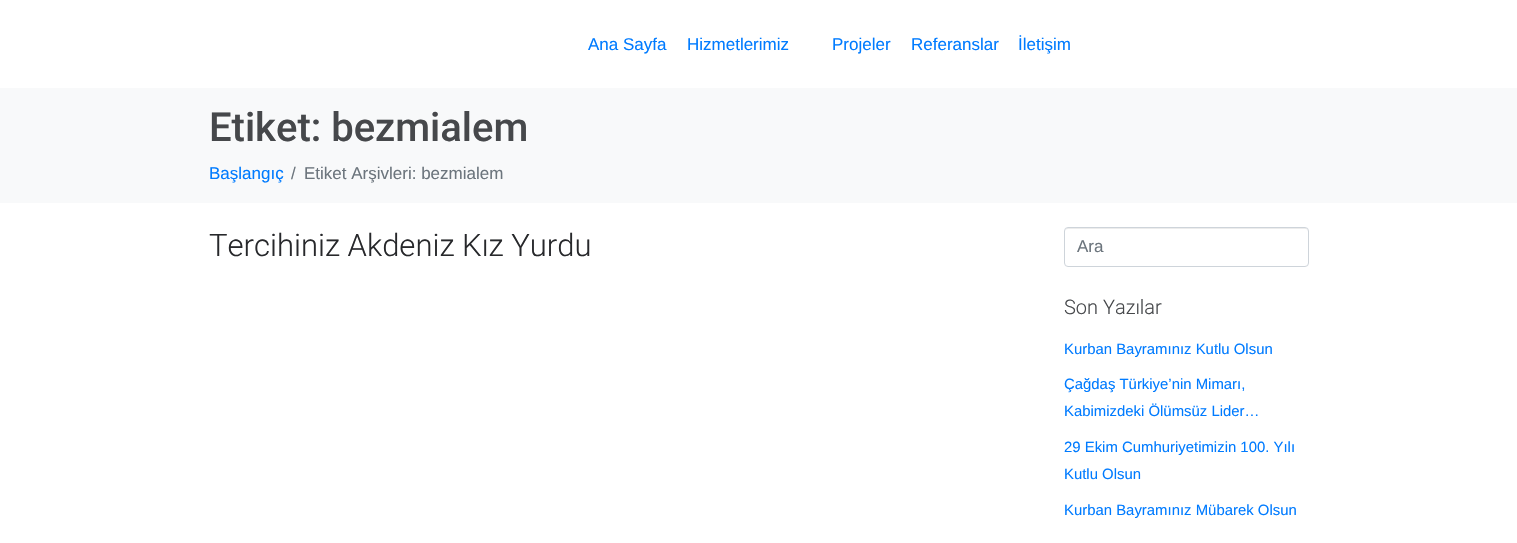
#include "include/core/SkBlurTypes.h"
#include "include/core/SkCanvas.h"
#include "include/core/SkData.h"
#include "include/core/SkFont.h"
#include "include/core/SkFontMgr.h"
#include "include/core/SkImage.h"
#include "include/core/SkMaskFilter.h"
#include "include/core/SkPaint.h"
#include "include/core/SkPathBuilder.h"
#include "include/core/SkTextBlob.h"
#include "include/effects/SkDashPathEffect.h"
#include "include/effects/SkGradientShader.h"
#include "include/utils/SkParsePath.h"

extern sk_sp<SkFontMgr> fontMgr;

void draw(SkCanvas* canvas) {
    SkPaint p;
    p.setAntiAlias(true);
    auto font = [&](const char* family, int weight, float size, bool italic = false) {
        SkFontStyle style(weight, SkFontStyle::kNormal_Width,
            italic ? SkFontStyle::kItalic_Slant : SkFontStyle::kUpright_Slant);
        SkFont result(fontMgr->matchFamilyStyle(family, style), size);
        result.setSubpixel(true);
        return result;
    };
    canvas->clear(0xFFFFFFFF);
    auto font1 = font("Liberation Sans", 400, 17);
    p.setColor(0xFF007BFF);
    {
        const struct { const char* s; float x, y; } items[] = {
            {"Ana Sayfa", 588, 50},
            {"Hizmetlerimiz", 687, 50},
            {"Projeler", 832, 50},
            {"Referanslar", 911, 50},
            {"İletişim", 1018, 50},
        };
        for (auto [s, x, y] : items) {
            canvas->drawString(s, x, y, font1, p);
        }
    }
    p.setColor(0xFFF8F9FA);
    canvas->drawRect(SkRect::MakeLTRB(0, 88, 1517, 203), p);
    auto font2 = font("Roboto", 500, 40);
    p.setColor(0xFF46484B);
    canvas->drawString("Etiket: bezmialem", 209, 141, font2, p);
    p.setColor(0xFF007BFF);
    canvas->drawString("Başlangıç", 209, 179, font1, p);
    p.setColor(0xFF6C757D);
    canvas->drawString("/", 291, 179, font1, p);
    canvas->drawString("Etiket Arşivleri: bezmialem", 304, 179, font1, p);
    auto font3 = font("Roboto", 300, 31);
    p.setColor(0xFF27282B);
    canvas->drawString("Tercihiniz Akdeniz Kız Yurdu", 209, 256, font3, p);
    p.setColor(0xFFECECEC);
    canvas->drawPath(SkPathBuilder().moveTo(1068, 229).lineTo(1306, 229).lineTo(1308, 230).lineTo(1308, 232).cubicTo(1308, 230, 1307, 228, 1305, 228).lineTo(1068, 228).cubicTo(1066, 228, 1065, 230, 1065, 232).cubicTo(1065, 230, 1066, 229, 1068, 229).close().detach(), p);
    p.setStyle(SkPaint::kStroke_Style);
    p.setStrokeWidth(1);
    p.setColor(0xFFCED4DA);
    canvas->drawRoundRect(SkRect::MakeLTRB(1064.5f, 227.5f, 1308.5f, 266.5f), 3.5f, 3.5f, p);
    p.setStyle(SkPaint::kFill_Style);
    p.setColor(0xFF6C757D);
    canvas->drawString("Ara", 1077, 252, font1, p);
    auto font4 = font("Roboto", 300, 20);
    p.setColor(0xFF46484B);
    canvas->drawString("Son Yazılar", 1064, 314, font4, p);
    auto font5 = font("Liberation Sans", 400, 14.9f);
    p.setColor(0xFF007BFF);
    {
        const struct { const char* s; float x, y; } items[] = {
            {"Kurban Bayramınız Kutlu Olsun", 1064, 354},
            {"Çağdaş Türkiye’nin Mimarı,", 1064, 389},
            {"Kabimizdeki Ölümsüz Lider…", 1064, 416},
            {"29 Ekim Cumhuriyetimizin 100. Yılı", 1064, 452},
            {"Kutlu Olsun", 1064, 479},
            {"Kurban Bayramınız Mübarek Olsun", 1064, 515},
        };
        for (auto [s, x, y] : items) {
            canvas->drawString(s, x, y, font5, p);
        }
    }
}
